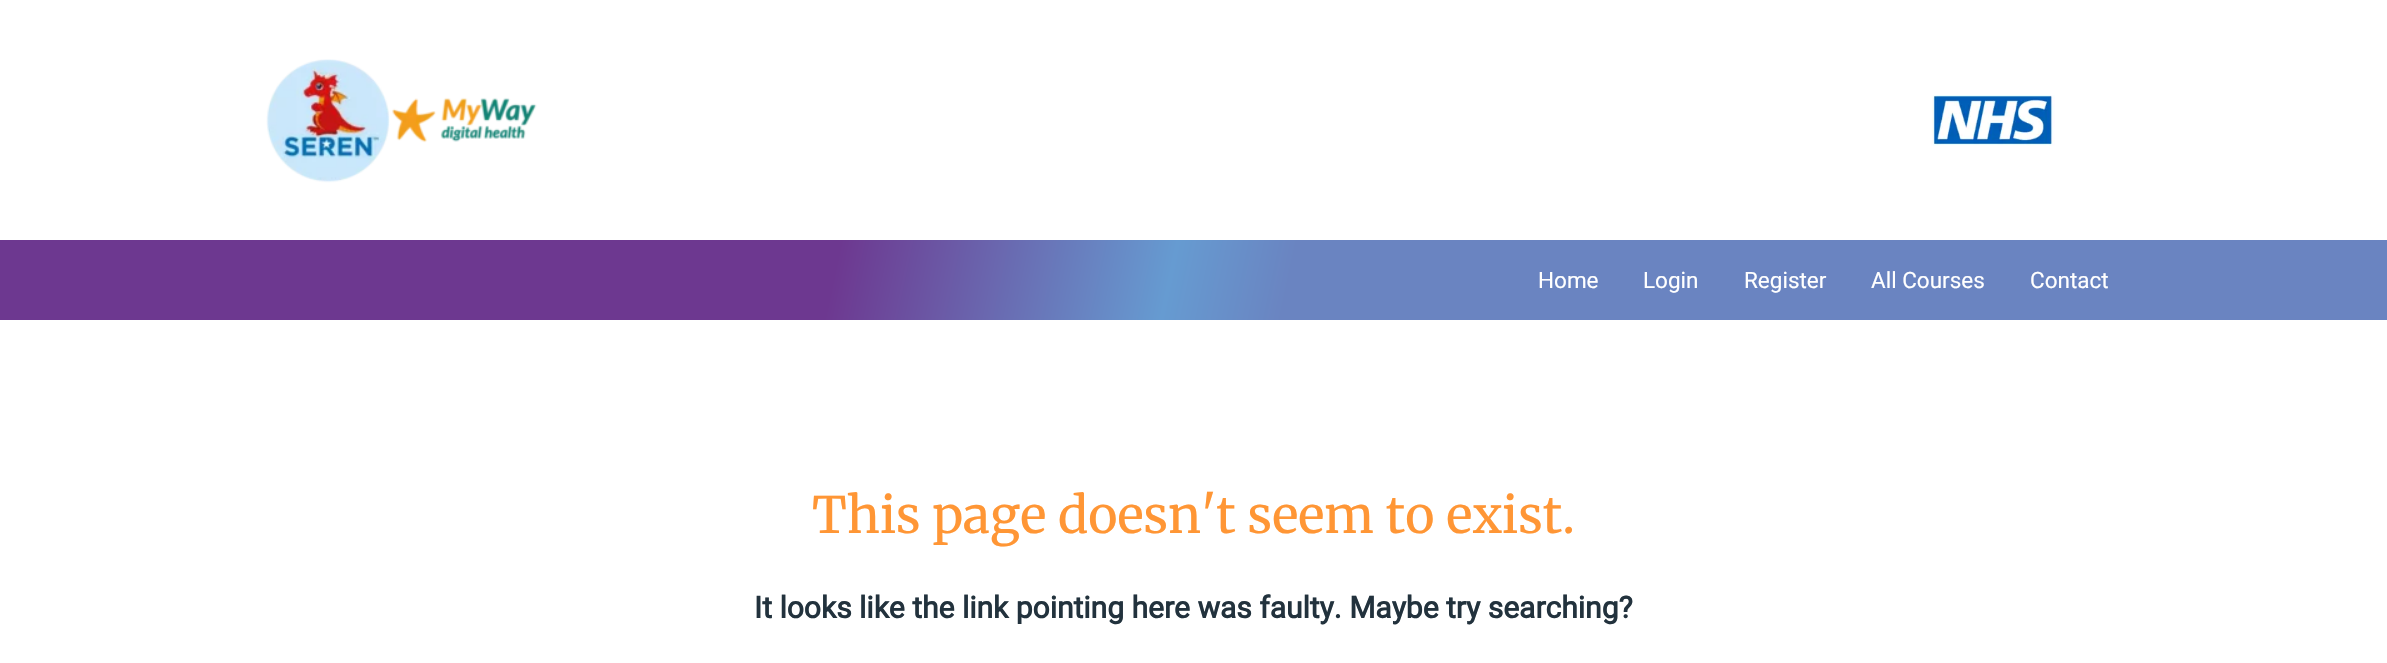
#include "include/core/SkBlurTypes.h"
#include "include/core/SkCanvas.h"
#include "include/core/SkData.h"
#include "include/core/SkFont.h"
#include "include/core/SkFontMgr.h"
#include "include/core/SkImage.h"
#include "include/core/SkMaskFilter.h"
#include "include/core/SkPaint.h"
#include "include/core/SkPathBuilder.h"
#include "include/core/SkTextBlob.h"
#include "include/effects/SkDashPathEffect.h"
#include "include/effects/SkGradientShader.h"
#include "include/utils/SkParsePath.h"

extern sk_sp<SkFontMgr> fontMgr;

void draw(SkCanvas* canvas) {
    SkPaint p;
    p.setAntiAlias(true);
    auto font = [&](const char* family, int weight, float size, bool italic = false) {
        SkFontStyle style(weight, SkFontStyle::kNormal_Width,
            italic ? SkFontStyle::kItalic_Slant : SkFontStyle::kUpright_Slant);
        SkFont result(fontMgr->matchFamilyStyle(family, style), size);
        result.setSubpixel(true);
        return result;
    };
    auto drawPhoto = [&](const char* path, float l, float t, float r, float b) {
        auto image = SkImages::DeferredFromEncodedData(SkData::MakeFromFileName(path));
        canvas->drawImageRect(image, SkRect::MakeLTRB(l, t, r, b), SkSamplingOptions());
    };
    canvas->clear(0xFFFFFFFF);
    drawPhoto("media/1.png", 266, 59, 537, 183);
    drawPhoto("media/2.png", 1931, 95, 2055, 146);
    {
        const SkColor colors[] = {0xFF6D3890, 0xFF669BD1, 0xFF6A84C1};
        const float stops[] = {0.35f, 0.49f, 0.54f};
        const SkPoint ends[] = {{43, 35}, {2344, 525}};
        p.setShader(SkGradientShader::MakeLinear(ends, colors, stops, 3, SkTileMode::kClamp));
        p.setAlpha(255);
    }
    canvas->drawRect(SkRect::MakeLTRB(0, 240, 2387, 320), p);
    auto font1 = font("Roboto", 400, 22.5f);
    p.setShader(nullptr);
    p.setColor(0xFFFFFFFF);
    {
        const struct { const char* s; float x, y; } items[] = {
            {"Home", 1538, 288},
            {"Login", 1643, 288},
            {"Register", 1744, 288},
            {"All Courses", 1871, 288},
            {"Contact", 2030, 288},
        };
        for (auto [s, x, y] : items) {
            canvas->drawString(s, x, y, font1, p);
        }
    }
    auto font2 = font("Merriweather", 400, 50);
    p.setColor(0xFFFF9635);
    canvas->drawString("This page doesn't seem to exist.", 812, 533, font2, p);
    auto font3 = font("Roboto", 700, 30);
    p.setColor(0xFF22323D);
    canvas->drawString("It looks like the link pointing here was faulty. Maybe try searching?", 754, 618, font3, p);
}
